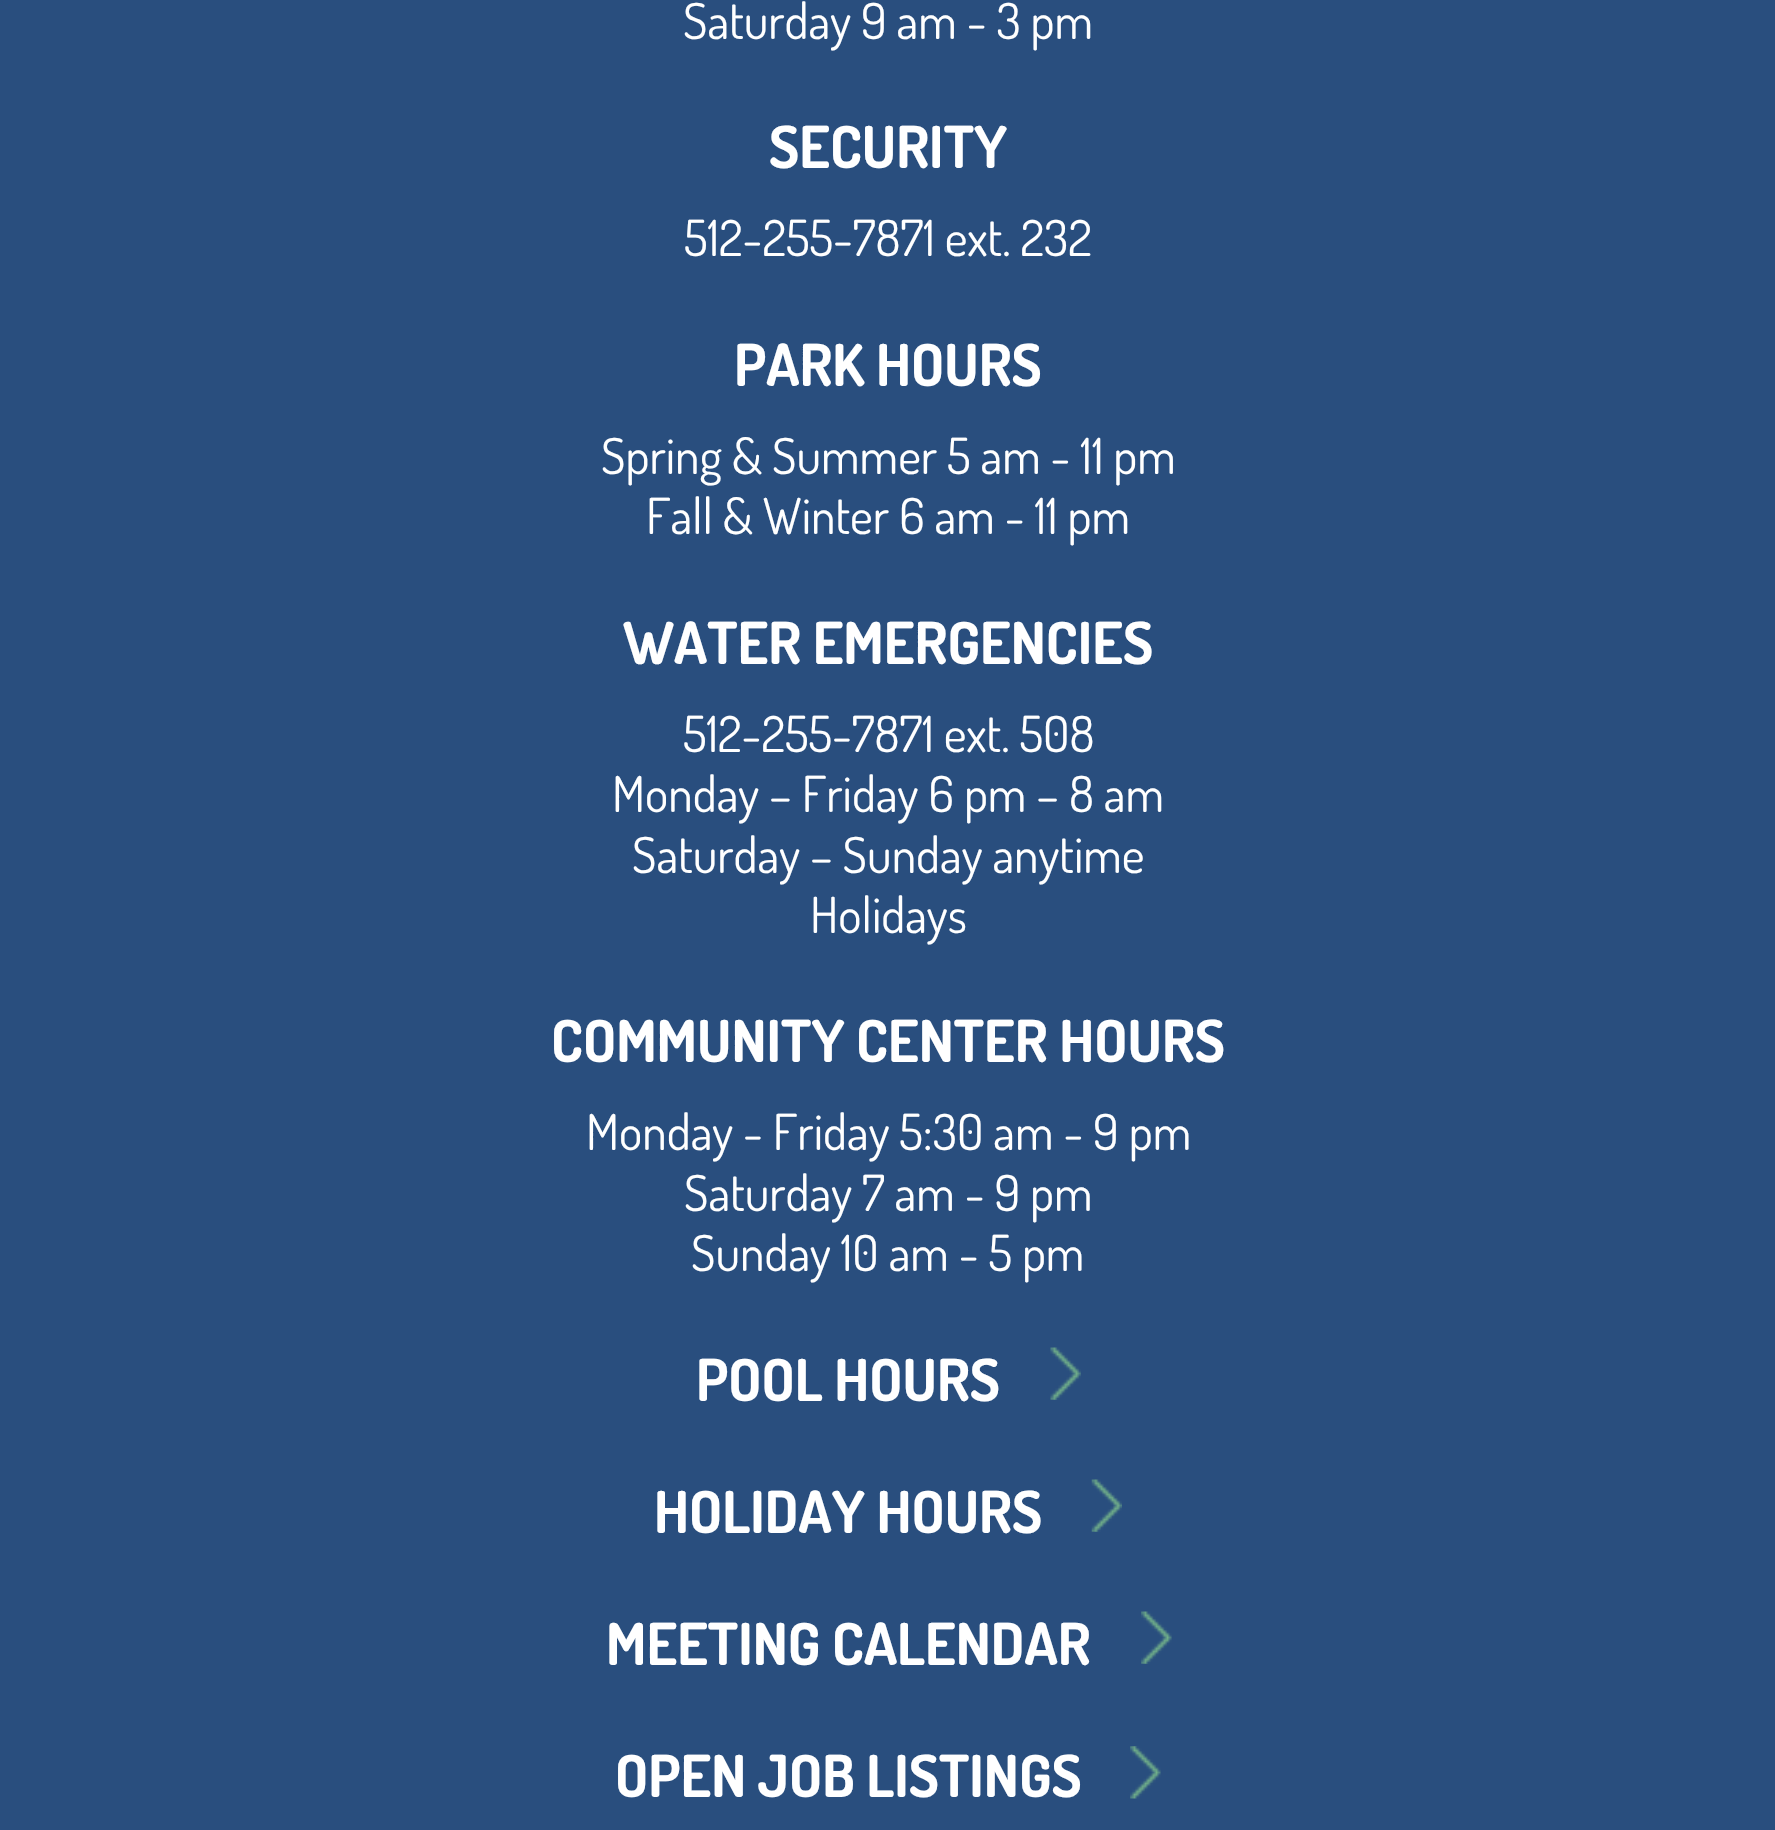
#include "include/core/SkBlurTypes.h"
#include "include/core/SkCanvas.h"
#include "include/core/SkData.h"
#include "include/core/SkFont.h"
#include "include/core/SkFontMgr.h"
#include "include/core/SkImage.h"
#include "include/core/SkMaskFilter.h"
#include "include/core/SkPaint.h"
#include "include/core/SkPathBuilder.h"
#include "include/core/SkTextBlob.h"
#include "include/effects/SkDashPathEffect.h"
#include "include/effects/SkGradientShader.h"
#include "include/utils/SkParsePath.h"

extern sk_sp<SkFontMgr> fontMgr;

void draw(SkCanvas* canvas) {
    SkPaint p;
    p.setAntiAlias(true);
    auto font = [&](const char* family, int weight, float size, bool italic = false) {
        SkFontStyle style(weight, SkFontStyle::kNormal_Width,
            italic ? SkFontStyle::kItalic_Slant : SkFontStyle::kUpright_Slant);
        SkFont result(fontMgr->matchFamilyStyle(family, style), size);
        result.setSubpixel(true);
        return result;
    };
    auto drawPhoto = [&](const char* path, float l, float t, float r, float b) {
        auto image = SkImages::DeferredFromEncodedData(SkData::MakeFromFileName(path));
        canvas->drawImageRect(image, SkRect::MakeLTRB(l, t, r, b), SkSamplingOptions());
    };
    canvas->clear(0xFF294E7E);
    auto font1 = font("Dosis", 400, 49.5f);
    p.setColor(0xFFFFFFFF);
    canvas->drawString("Saturday 9 am - 3 pm", 683, 39, font1, p);
    auto font2 = font("Dosis", 700, 57.9f);
    canvas->drawString("SECURITY", 769, 168, font2, p);
    canvas->drawString("512-255-7871 ext. 232", 684, 256, font1, p);
    canvas->drawString("PARK HOURS", 734, 386, font2, p);
    canvas->drawString("Spring & Summer 5 am - 11 pm", 601, 474, font1, p);
    canvas->drawString("Fall & Winter 6 am - 11 pm", 646, 534, font1, p);
    canvas->drawString("WATER EMERGENCIES", 623, 664, font2, p);
    {
        const struct { const char* s; float x, y; } items[] = {
            {"512-255-7871 ext. 508", 683, 752},
            {"Monday – Friday 6 pm – 8 am", 612, 812},
            {"Saturday – Sunday anytime", 632, 873},
            {"Holidays", 810, 933},
        };
        for (auto [s, x, y] : items) {
            canvas->drawString(s, x, y, font1, p);
        }
    }
    canvas->drawString("COMMUNITY CENTER HOURS", 551, 1062, font2, p);
    {
        const struct { const char* s; float x, y; } items[] = {
            {"Monday - Friday 5:30 am - 9 pm", 586, 1150},
            {"Saturday 7 am - 9 pm", 684, 1211},
            {"Sunday 10 am - 5 pm", 691, 1271},
        };
        for (auto [s, x, y] : items) {
            canvas->drawString(s, x, y, font1, p);
        }
    }
    canvas->drawString("POOL HOURS", 696, 1401, font2, p);
    drawPhoto("media/1.png", 1050, 1347, 1081, 1400);
    canvas->drawString("HOLIDAY HOURS", 654, 1533, font2, p);
    drawPhoto("media/2.png", 1091, 1479, 1122, 1532);
    canvas->drawString("MEETING CALENDAR", 606, 1665, font2, p);
    drawPhoto("media/3.png", 1141, 1611, 1172, 1664);
    canvas->drawString("OPEN JOB LISTINGS", 615, 1797, font2, p);
    drawPhoto("media/4.png", 1130, 1746, 1161, 1799);
}
